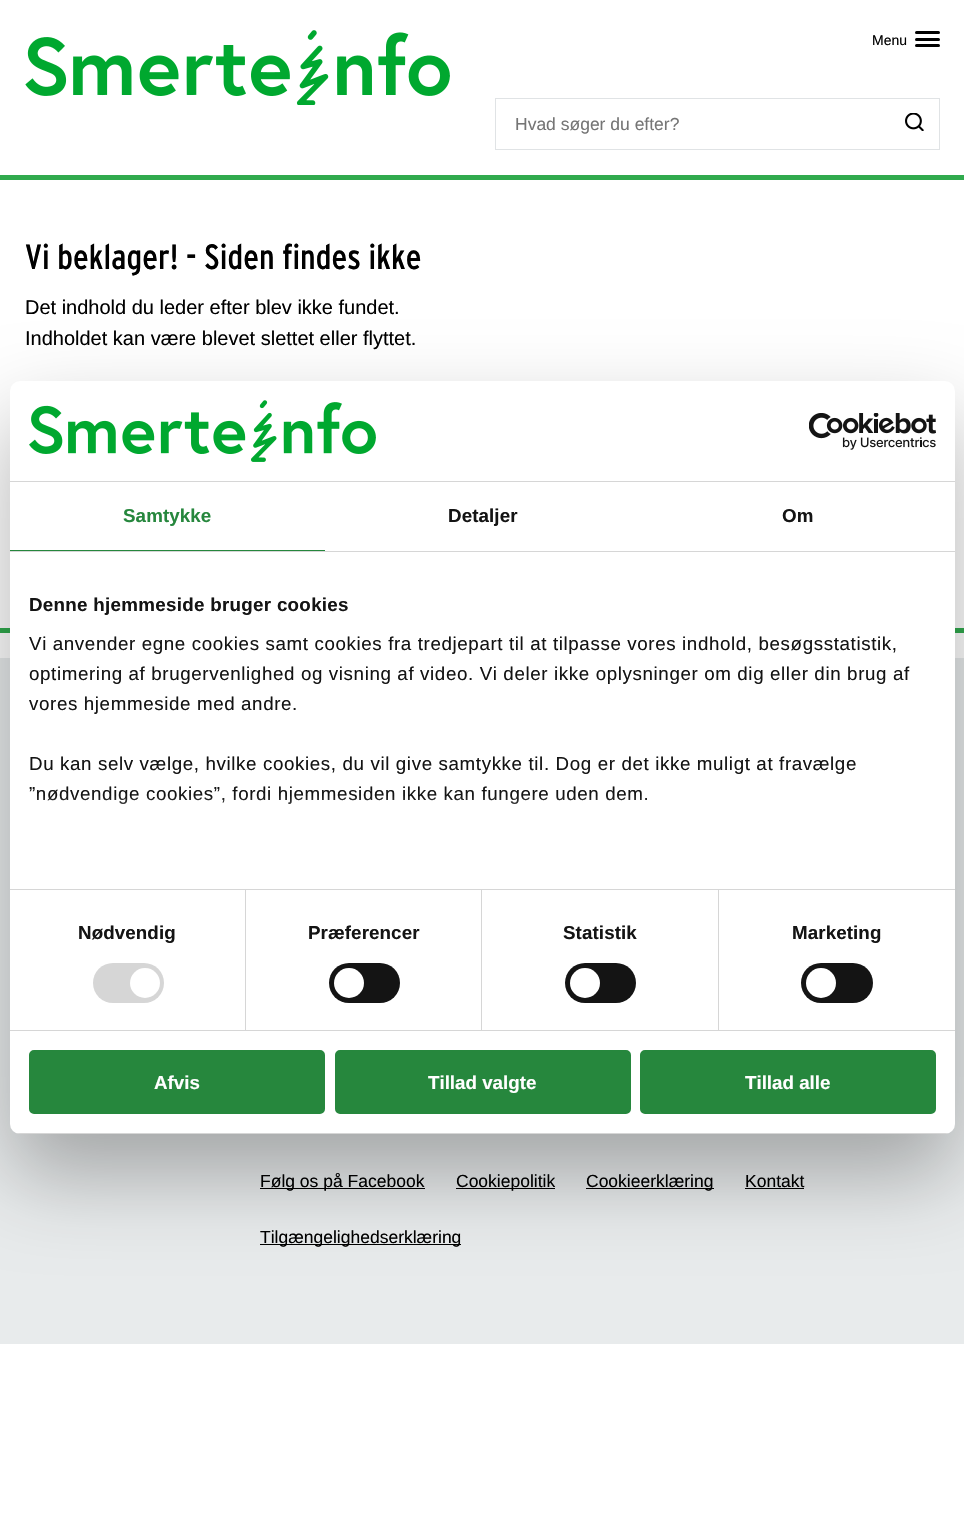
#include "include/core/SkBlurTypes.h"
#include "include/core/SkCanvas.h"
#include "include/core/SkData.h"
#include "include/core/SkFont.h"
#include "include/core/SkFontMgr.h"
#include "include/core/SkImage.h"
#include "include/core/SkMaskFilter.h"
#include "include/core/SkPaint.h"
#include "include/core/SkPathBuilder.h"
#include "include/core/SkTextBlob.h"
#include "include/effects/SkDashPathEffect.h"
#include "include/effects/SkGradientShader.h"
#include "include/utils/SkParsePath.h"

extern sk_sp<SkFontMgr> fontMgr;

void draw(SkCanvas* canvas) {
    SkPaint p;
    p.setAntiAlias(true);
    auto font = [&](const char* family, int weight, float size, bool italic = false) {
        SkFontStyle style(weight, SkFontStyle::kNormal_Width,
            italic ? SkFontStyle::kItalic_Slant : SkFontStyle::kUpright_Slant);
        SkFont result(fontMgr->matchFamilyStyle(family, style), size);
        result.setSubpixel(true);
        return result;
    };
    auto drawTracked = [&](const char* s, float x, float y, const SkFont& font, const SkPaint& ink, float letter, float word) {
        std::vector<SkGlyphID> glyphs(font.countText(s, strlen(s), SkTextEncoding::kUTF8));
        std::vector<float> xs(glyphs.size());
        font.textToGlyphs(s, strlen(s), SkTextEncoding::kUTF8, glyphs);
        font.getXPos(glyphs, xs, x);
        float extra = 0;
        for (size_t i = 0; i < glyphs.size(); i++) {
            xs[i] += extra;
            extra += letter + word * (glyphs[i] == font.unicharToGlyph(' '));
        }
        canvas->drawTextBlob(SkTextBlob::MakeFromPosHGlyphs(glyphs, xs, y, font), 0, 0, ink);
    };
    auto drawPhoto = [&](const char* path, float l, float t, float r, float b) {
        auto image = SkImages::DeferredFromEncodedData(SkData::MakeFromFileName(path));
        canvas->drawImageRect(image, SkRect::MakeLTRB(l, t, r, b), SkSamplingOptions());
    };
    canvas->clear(0xFFFFFFFF);
    p.setColor(0xFF30AA4D);
    canvas->drawRect(SkRect::MakeLTRB(0, 175, 964, 180), p);
    drawPhoto("media/1.png", 25, 30, 450, 105);
    auto font1 = font("Liberation Sans", 400, 14);
    p.setColor(0xFF000000);
    canvas->drawString("Menu", 872, 45, font1, p);
    canvas->drawRoundRect(SkRect::MakeLTRB(915, 38, 940, 41), 1.5f, 1.5f, p);
    canvas->drawRoundRect(SkRect::MakeLTRB(915, 31, 940, 34), 1.5f, 1.5f, p);
    canvas->drawRoundRect(SkRect::MakeLTRB(915, 44, 940, 47), 1.5f, 1.5f, p);
    p.setStyle(SkPaint::kStroke_Style);
    p.setStrokeWidth(1);
    p.setColor(0xFFE0E3E5);
    canvas->drawRect(SkRect::MakeLTRB(495.5f, 98.5f, 939.5f, 149.5f), p);
    auto font2 = font("Liberation Sans", 400, 17.5f);
    p.setStyle(SkPaint::kFill_Style);
    p.setColor(0xFF757575);
    canvas->drawString("Hvad søger du efter?", 515, 130, font2, p);
    drawPhoto("media/2.png", 905, 113, 924, 131);
    auto font3 = font("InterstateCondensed", 400, 35);
    p.setColor(0xFF000000);
    canvas->drawString("Vi beklager! - Siden findes ikke", 25, 269, font3, p);
    auto font4 = font("Liberation Sans", 400, 20);
    canvas->drawString("Det indhold du leder efter blev ikke fundet.", 25, 314, font4, p);
    canvas->drawString("Indholdet kan være blevet slettet eller flyttet.", 25, 345, font4, p);
    {
        const struct { float l, t, r, b; SkColor color; } items[] = {
            {0, 628, 964, 633, 0xFF30AA4D},
            {0, 658, 964, 1344, 0xFFE8EBEC},
            {260, 1188, 425, 1189, 0xFF000000},
            {456, 1188, 555, 1189, 0xFF000000},
            {586, 1188, 714, 1189, 0xFF000000},
            {745, 1188, 804, 1189, 0xFF000000},
            {260, 1244, 461, 1245, 0xFF000000},
        };
        for (auto [l, t, r, b, color] : items) {
            p.setColor(color);
            canvas->drawRect(SkRect::MakeLTRB(l, t, r, b), p);
        }
    }
    p.setColor(0x4D000000);
    p.setMaskFilter(SkMaskFilter::MakeBlur(kNormal_SkBlurStyle, 42.5f));
    canvas->drawRoundRect(SkRect::MakeLTRB(10, 421, 955, 1174), 10, 10, p);
    p.setMaskFilter(nullptr);
    p.setColor(0xFFFFFFFF);
    canvas->drawRoundRect(SkRect::MakeLTRB(10, 381, 955, 1134), 10, 10, p);
    p.setColor(0xFFD6D6D6);
    canvas->drawRect(SkRect::MakeLTRB(10, 481, 955, 482), p);
    drawPhoto("media/3.png", 29, 400, 376, 462);
    drawPhoto("media/4.png", 809, 413, 936, 450);
    canvas->drawRect(SkRect::MakeLTRB(10, 551, 955, 552), p);
    p.setColor(0xFF26873D);
    canvas->drawRect(SkRect::MakeLTRB(10, 550, 325, 551), p);
    auto font5 = font("Liberation Sans", 700, 18.75f);
    drawTracked("Samtykke", 123, 522, font5, p, 0.1f, 0);
    p.setColor(0xFF141414);
    drawTracked("Detaljer", 448, 522, font5, p, 0.1f, 0);
    drawTracked("Om", 782, 522, font5, p, 0.1f, 0);
    p.setColor(0xFFD6D6D6);
    canvas->drawRect(SkRect::MakeLTRB(10, 889, 955, 890), p);
    p.setColor(0xFF141414);
    drawTracked("Denne hjemmeside bruger cookies", 29, 611, font5, p, 0.3f, 0);
    auto font6 = font("Liberation Sans", 400, 18.75f);
    {
        const struct { const char* s; float x, y; } items[] = {
            {"Vi anvender egne cookies samt cookies fra tredjepart til at tilpasse vores indhold, besøgsstatistik,", 29, 650},
            {"optimering af brugervenlighed og visning af video. Vi deler ikke oplysninger om dig eller din brug af", 29, 680},
            {"vores hjemmeside med andre.", 29, 710},
            {"Du kan selv vælge, hvilke cookies, du vil give samtykke til. Dog er det ikke muligt at fravælge", 29, 770},
            {"”nødvendige cookies”, fordi hjemmesiden ikke kan fungere uden dem.", 29, 800},
        };
        for (auto [s, x, y] : items) {
            drawTracked(s, x, y, font6, p, 0.62f, 0);
        }
    }
    {
        const SkColor colors[] = {0xFFFFFFFF, 0xCCFFFFFF, 0x00FFFFFF};
        const float stops[] = {0, 0.5f, 1};
        const SkPoint ends[] = {{474, 889}, {474, 795}};
        p.setShader(SkGradientShader::MakeLinear(ends, colors, stops, 3, SkTileMode::kClamp));
        p.setAlpha(255);
    }
    canvas->drawRect(SkRect::MakeLTRB(37, 796, 648, 804), p);
    p.setShader(nullptr);
    p.setColor(0xFFD6D6D6);
    canvas->drawRect(SkRect::MakeLTRB(10, 1030, 955, 1031), p);
    canvas->drawRect(SkRect::MakeLTRB(245, 890, 246, 1030), p);
    p.setColor(0xFF141414);
    drawTracked("Nødvendig", 78, 939, font5, p, 0.1f, 0);
    p.setColor(0xFFD6D6D6);
    canvas->drawRoundRect(SkRect::MakeLTRB(93, 963, 164, 1003), 20, 20, p);
    p.setColor(0xFFFFFFFF);
    canvas->drawCircle(145, 983, 15, p);
    p.setColor(0xFFD6D6D6);
    canvas->drawRect(SkRect::MakeLTRB(481, 890, 482, 1030), p);
    p.setColor(0xFF141414);
    drawTracked("Præferencer", 308, 939, font5, p, 0.1f, 0);
    canvas->drawRoundRect(SkRect::MakeLTRB(329, 963, 400, 1003), 20, 20, p);
    p.setColor(0xFFFFFFFF);
    canvas->drawCircle(349, 983, 15, p);
    p.setColor(0xFFD6D6D6);
    canvas->drawRect(SkRect::MakeLTRB(718, 890, 719, 1030), p);
    p.setColor(0xFF141414);
    drawTracked("Statistik", 563, 939, font5, p, 0.1f, 0);
    canvas->drawRoundRect(SkRect::MakeLTRB(565, 963, 636, 1003), 20, 20, p);
    p.setColor(0xFFFFFFFF);
    canvas->drawCircle(585, 983, 15, p);
    p.setColor(0xFF141414);
    drawTracked("Marketing", 792, 939, font5, p, 0.1f, 0);
    canvas->drawRoundRect(SkRect::MakeLTRB(801, 963, 873, 1003), 20, 20, p);
    p.setColor(0xFFFFFFFF);
    canvas->drawCircle(821, 983, 15, p);
    canvas->save();
    canvas->clipPath(SkPathBuilder().moveTo(20, 381).lineTo(945, 381).cubicTo(950.5f, 381, 955, 385.5f, 955, 391).lineTo(955, 1124).cubicTo(955, 1129.5f, 950.5f, 1134, 945, 1134).lineTo(20, 1134).cubicTo(14.5f, 1134, 10, 1129.5f, 10, 1124).lineTo(10, 391).cubicTo(10, 385.5f, 14.5f, 381, 20, 381).close().detach(), true);
    p.setColor(0xFFD6D6D6);
    canvas->drawRect(SkRect::MakeLTRB(10, 1133, 955, 1134), p);
    canvas->restore();
    p.setColor(0xFF26873D);
    canvas->drawRoundRect(SkRect::MakeLTRB(30.5f, 1051.5f, 323.5f, 1112.5f), 3.5f, 3.5f, p);
    p.setStyle(SkPaint::kStroke_Style);
    p.setStrokeWidth(3);
    canvas->drawRoundRect(SkRect::MakeLTRB(30.5f, 1051.5f, 323.5f, 1112.5f), 3.5f, 3.5f, p);
    p.setStyle(SkPaint::kFill_Style);
    p.setColor(0xFFFFFFFF);
    canvas->drawString("Afvis", 154, 1089, font5, p);
    p.setColor(0xFF26873D);
    canvas->drawRoundRect(SkRect::MakeLTRB(336.5f, 1051.5f, 629.5f, 1112.5f), 3.5f, 3.5f, p);
    p.setStyle(SkPaint::kStroke_Style);
    canvas->drawRoundRect(SkRect::MakeLTRB(336.5f, 1051.5f, 629.5f, 1112.5f), 3.5f, 3.5f, p);
    p.setStyle(SkPaint::kFill_Style);
    p.setColor(0xFFFFFFFF);
    canvas->drawString("Tillad valgte", 428, 1089, font5, p);
    p.setColor(0xFF26873D);
    canvas->drawRoundRect(SkRect::MakeLTRB(641.5f, 1051.5f, 934.5f, 1112.5f), 3.5f, 3.5f, p);
    p.setStyle(SkPaint::kStroke_Style);
    canvas->drawRoundRect(SkRect::MakeLTRB(641.5f, 1051.5f, 934.5f, 1112.5f), 3.5f, 3.5f, p);
    p.setStyle(SkPaint::kFill_Style);
    p.setColor(0xFFFFFFFF);
    canvas->drawString("Tillad alle", 745, 1089, font5, p);
    p.setColor(0xFF000000);
    {
        const struct { const char* s; float x, y; } items[] = {
            {"Følg os på Facebook", 260, 1187},
            {"Cookiepolitik", 456, 1187},
            {"Cookieerklæring", 586, 1187},
            {"Kontakt", 745, 1187},
            {"Tilgængelighedserklæring", 260, 1243},
        };
        for (auto [s, x, y] : items) {
            canvas->drawString(s, x, y, font2, p);
        }
    }
}
